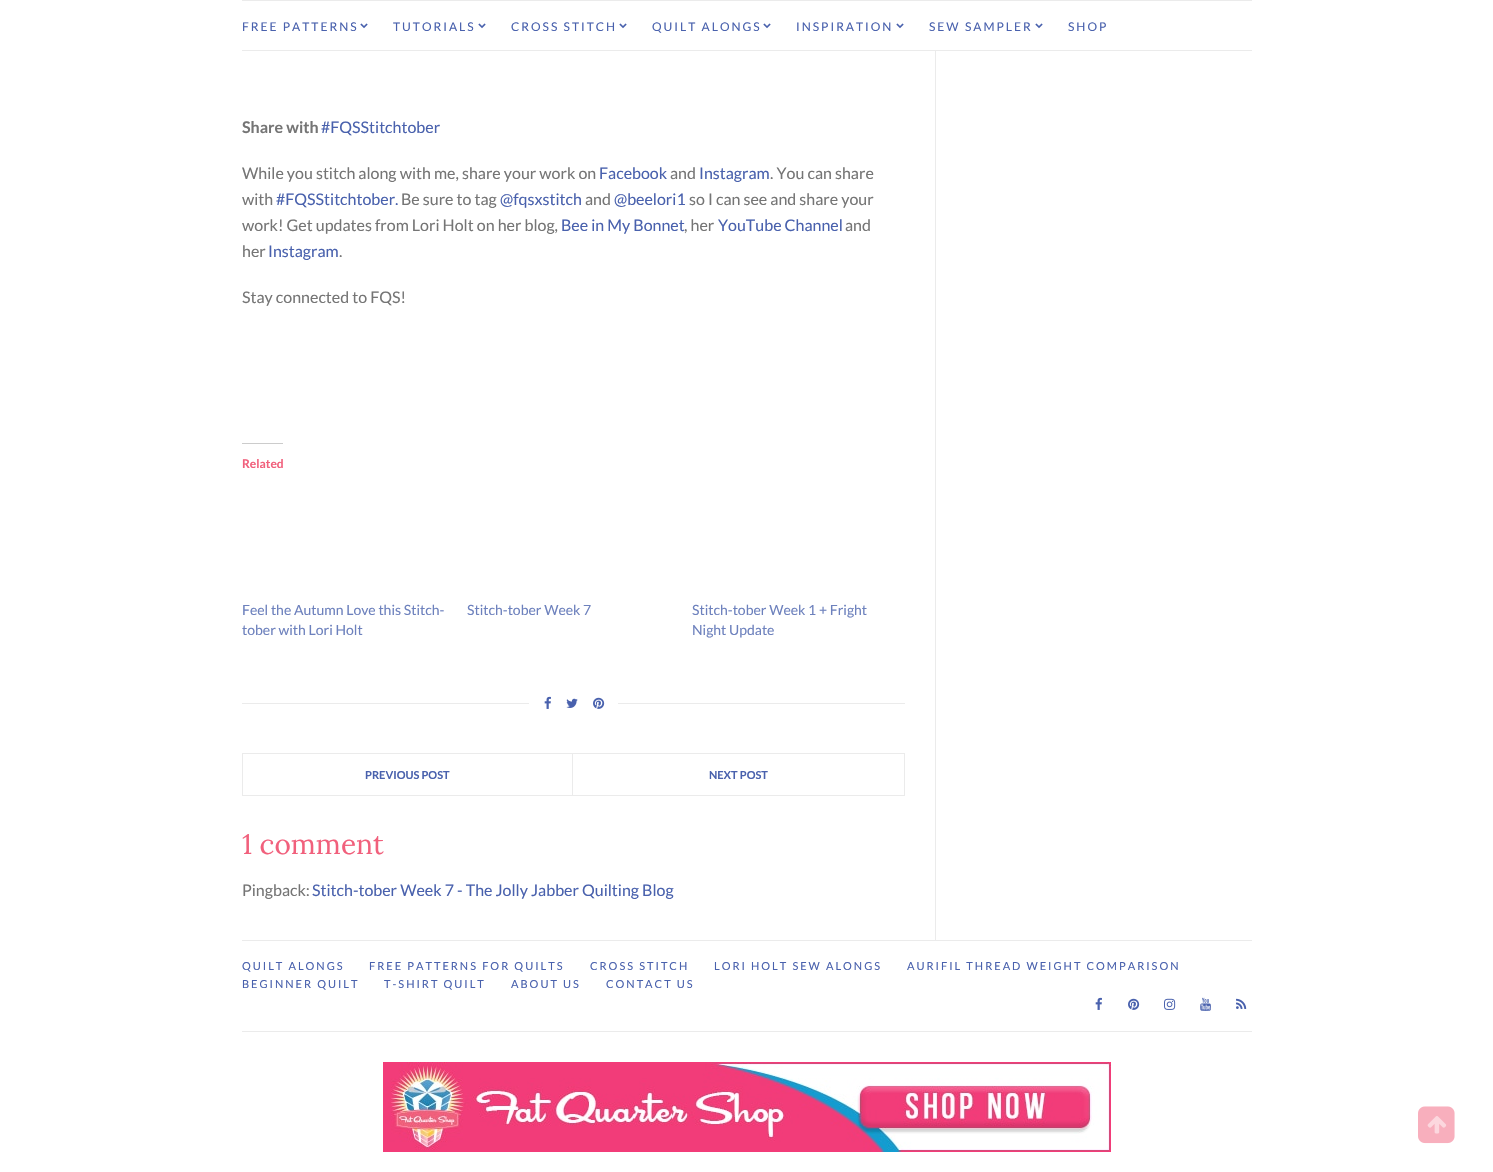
#include "include/core/SkBlurTypes.h"
#include "include/core/SkCanvas.h"
#include "include/core/SkData.h"
#include "include/core/SkFont.h"
#include "include/core/SkFontMgr.h"
#include "include/core/SkImage.h"
#include "include/core/SkMaskFilter.h"
#include "include/core/SkPaint.h"
#include "include/core/SkPathBuilder.h"
#include "include/core/SkTextBlob.h"
#include "include/effects/SkDashPathEffect.h"
#include "include/effects/SkGradientShader.h"
#include "include/utils/SkParsePath.h"

extern sk_sp<SkFontMgr> fontMgr;

void draw(SkCanvas* canvas) {
    SkPaint p;
    p.setAntiAlias(true);
    auto font = [&](const char* family, int weight, float size, bool italic = false) {
        SkFontStyle style(weight, SkFontStyle::kNormal_Width,
            italic ? SkFontStyle::kItalic_Slant : SkFontStyle::kUpright_Slant);
        SkFont result(fontMgr->matchFamilyStyle(family, style), size);
        result.setSubpixel(true);
        return result;
    };
    auto drawTracked = [&](const char* s, float x, float y, const SkFont& font, const SkPaint& ink, float letter, float word) {
        std::vector<SkGlyphID> glyphs(font.countText(s, strlen(s), SkTextEncoding::kUTF8));
        std::vector<float> xs(glyphs.size());
        font.textToGlyphs(s, strlen(s), SkTextEncoding::kUTF8, glyphs);
        font.getXPos(glyphs, xs, x);
        float extra = 0;
        for (size_t i = 0; i < glyphs.size(); i++) {
            xs[i] += extra;
            extra += letter + word * (glyphs[i] == font.unicharToGlyph(' '));
        }
        canvas->drawTextBlob(SkTextBlob::MakeFromPosHGlyphs(glyphs, xs, y, font), 0, 0, ink);
    };
    auto drawPhoto = [&](const char* path, float l, float t, float r, float b) {
        auto image = SkImages::DeferredFromEncodedData(SkData::MakeFromFileName(path));
        canvas->drawImageRect(image, SkRect::MakeLTRB(l, t, r, b), SkSamplingOptions());
    };
    canvas->clear(0xFFFFFFFF);
    p.setColor(0xFFEBEBEB);
    canvas->drawRect(SkRect::MakeLTRB(242, 0, 1252, 1), p);
    canvas->drawRect(SkRect::MakeLTRB(242, 50, 1252, 51), p);
    auto font1 = font("Lato", 400, 12);
    p.setColor(0xFF4961AD);
    drawTracked("FREE PATTERNS", 242, 31, font1, p, 2, 0);
    drawPhoto("media/1.png", 360, 23, 368, 29);
    drawTracked("TUTORIALS", 393, 31, font1, p, 2, 0);
    drawPhoto("media/1.png", 478, 23, 486, 29);
    drawTracked("CROSS STITCH", 511, 31, font1, p, 2, 0);
    drawPhoto("media/1.png", 619, 23, 627, 29);
    drawTracked("QUILT ALONGS", 652, 31, font1, p, 2, 0);
    drawPhoto("media/1.png", 763, 23, 771, 29);
    drawTracked("INSPIRATION", 796, 31, font1, p, 2, 0);
    drawPhoto("media/1.png", 896, 23, 904, 29);
    drawTracked("SEW SAMPLER", 929, 31, font1, p, 2, 0);
    drawPhoto("media/1.png", 1035, 23, 1043, 29);
    drawTracked("SHOP", 1068, 31, font1, p, 2, 0);
    auto font2 = font("Lato", 700, 16);
    p.setColor(0xFF757575);
    canvas->drawString("Share with", 242, 133, font2, p);
    auto font3 = font("Lato", 400, 16);
    p.setColor(0xFF4961AD);
    canvas->drawString("#FQSStitchtober", 321, 133, font3, p);
    p.setColor(0xFF757575);
    canvas->drawString("While you stitch along with me, share your work on", 242, 179, font3, p);
    p.setColor(0xFF4961AD);
    canvas->drawString("Facebook", 599, 179, font3, p);
    p.setColor(0xFF757575);
    canvas->drawString("and", 670, 179, font3, p);
    p.setColor(0xFF4961AD);
    canvas->drawString("Instagram", 699, 179, font3, p);
    p.setColor(0xFF757575);
    canvas->drawString(". You can share", 770, 179, font3, p);
    canvas->drawString("with", 242, 205, font3, p);
    p.setColor(0xFF4961AD);
    canvas->drawString("#FQSStitchtober.", 276, 205, font3, p);
    p.setColor(0xFF757575);
    canvas->drawString("Be sure to tag", 401, 205, font3, p);
    p.setColor(0xFF4961AD);
    canvas->drawString("@fqsxstitch", 500, 205, font3, p);
    p.setColor(0xFF757575);
    canvas->drawString("and", 585, 205, font3, p);
    p.setColor(0xFF4961AD);
    canvas->drawString("@beelori1", 614, 205, font3, p);
    p.setColor(0xFF757575);
    canvas->drawString("so I can see and share your", 689, 205, font3, p);
    canvas->drawString("work! Get updates from Lori Holt on her blog,", 242, 231, font3, p);
    p.setColor(0xFF4961AD);
    canvas->drawString("Bee in My Bonnet", 561, 231, font3, p);
    p.setColor(0xFF757575);
    canvas->drawString(", her", 684, 231, font3, p);
    p.setColor(0xFF4961AD);
    canvas->drawString("YouTube Channel", 718, 231, font3, p);
    p.setColor(0xFF757575);
    canvas->drawString("and", 845, 231, font3, p);
    canvas->drawString("her", 242, 257, font3, p);
    p.setColor(0xFF4961AD);
    canvas->drawString("Instagram", 268, 257, font3, p);
    p.setColor(0xFF757575);
    canvas->drawString(".", 339, 257, font3, p);
    canvas->drawString("Stay connected to FQS!", 242, 303, font3, p);
    p.setColor(0xFFCCCCCC);
    canvas->drawRect(SkRect::MakeLTRB(242, 443, 283, 444), p);
    auto font4 = font("Lato", 700, 12);
    p.setColor(0xFFF1607C);
    canvas->drawString("Related", 242, 468, font4, p);
    auto font5 = font("Lato", 400, 14);
    p.setColor(0xFF6D81BD);
    {
        const struct { const char* s; float x, y; } items[] = {
            {"Feel the Autumn Love this Stitch-", 242, 615},
            {"tober with Lori Holt", 242, 635},
            {"Stitch-tober Week 7", 467, 615},
            {"Stitch-tober Week 1 + Fright", 692, 615},
            {"Night Update", 692, 635},
        };
        for (auto [s, x, y] : items) {
            canvas->drawString(s, x, y, font5, p);
        }
    }
    p.setColor(0xFFEBEBEB);
    canvas->drawRect(SkRect::MakeLTRB(242, 703, 905, 704), p);
    p.setColor(0xFFFFFFFF);
    canvas->drawRect(SkRect::MakeLTRB(529, 703, 618, 704), p);
    drawPhoto("media/2.png", 544, 696, 551, 709);
    drawPhoto("media/3.png", 566, 698, 578, 708);
    drawPhoto("media/4.png", 593, 697, 605, 709);
    p.setStyle(SkPaint::kStroke_Style);
    p.setStrokeWidth(1);
    p.setColor(0xFFEBEBEB);
    canvas->drawRect(SkRect::MakeLTRB(242.5f, 753.5f, 904.5f, 795.5f), p);
    p.setStyle(SkPaint::kFill_Style);
    canvas->drawRect(SkRect::MakeLTRB(572, 754, 573, 795), p);
    auto font6 = font("Lato", 700, 11);
    p.setColor(0xFF4961AD);
    canvas->drawString("PREVIOUS POST", 365, 779, font6, p);
    canvas->drawString("NEXT POST", 709, 779, font6, p);
    auto font7 = font("Lora", 400, 28);
    p.setColor(0xFFF1607C);
    canvas->drawString("1 comment", 242, 854, font7, p);
    p.setColor(0xFF757575);
    canvas->drawString("Pingback:", 242, 896, font3, p);
    p.setColor(0xFF4961AD);
    canvas->drawString("Stitch-tober Week 7 - The Jolly Jabber Quilting Blog", 312, 896, font3, p);
    {
        const struct { float l, t, r, b; SkColor color; } items[] = {
            {935, 51, 936, 940, 0xFFEBEBEB},
            {242, 940, 1252, 941, 0xFFEBEBEB},
            {242, 1031, 1252, 1032, 0xFFEBEBEB},
        };
        for (auto [l, t, r, b, color] : items) {
            p.setColor(color);
            canvas->drawRect(SkRect::MakeLTRB(l, t, r, b), p);
        }
    }
    auto font8 = font("Lato", 400, 11);
    p.setColor(0xFF4961AD);
    {
        const struct { const char* s; float x, y; } items[] = {
            {"QUILT ALONGS", 242, 970},
            {"FREE PATTERNS FOR QUILTS", 369, 970},
            {"CROSS STITCH", 590, 970},
            {"LORI HOLT SEW ALONGS", 714, 970},
            {"AURIFIL THREAD WEIGHT COMPARISON", 907, 970},
            {"BEGINNER QUILT", 242, 988},
            {"T-SHIRT QUILT", 384, 988},
            {"ABOUT US", 511, 988},
            {"CONTACT US", 606, 988},
        };
        for (auto [s, x, y] : items) {
            drawTracked(s, x, y, font8, p, 2, 0);
        }
    }
    drawPhoto("media/2.png", 1095, 997, 1102, 1010);
    drawPhoto("media/4.png", 1128, 998, 1140, 1010);
    drawPhoto("media/5.png", 1164, 998, 1176, 1010);
    drawPhoto("media/6.png", 1200, 997, 1211, 1011);
    drawPhoto("media/7.png", 1236, 998, 1247, 1009);
    drawPhoto("media/8.png", 383, 1062, 1111, 1152);
    drawPhoto("media/9.png", 1418, 1106, 1455, 1144);
    drawPhoto("media/10.png", 1427, 1116, 1447, 1134);
}
